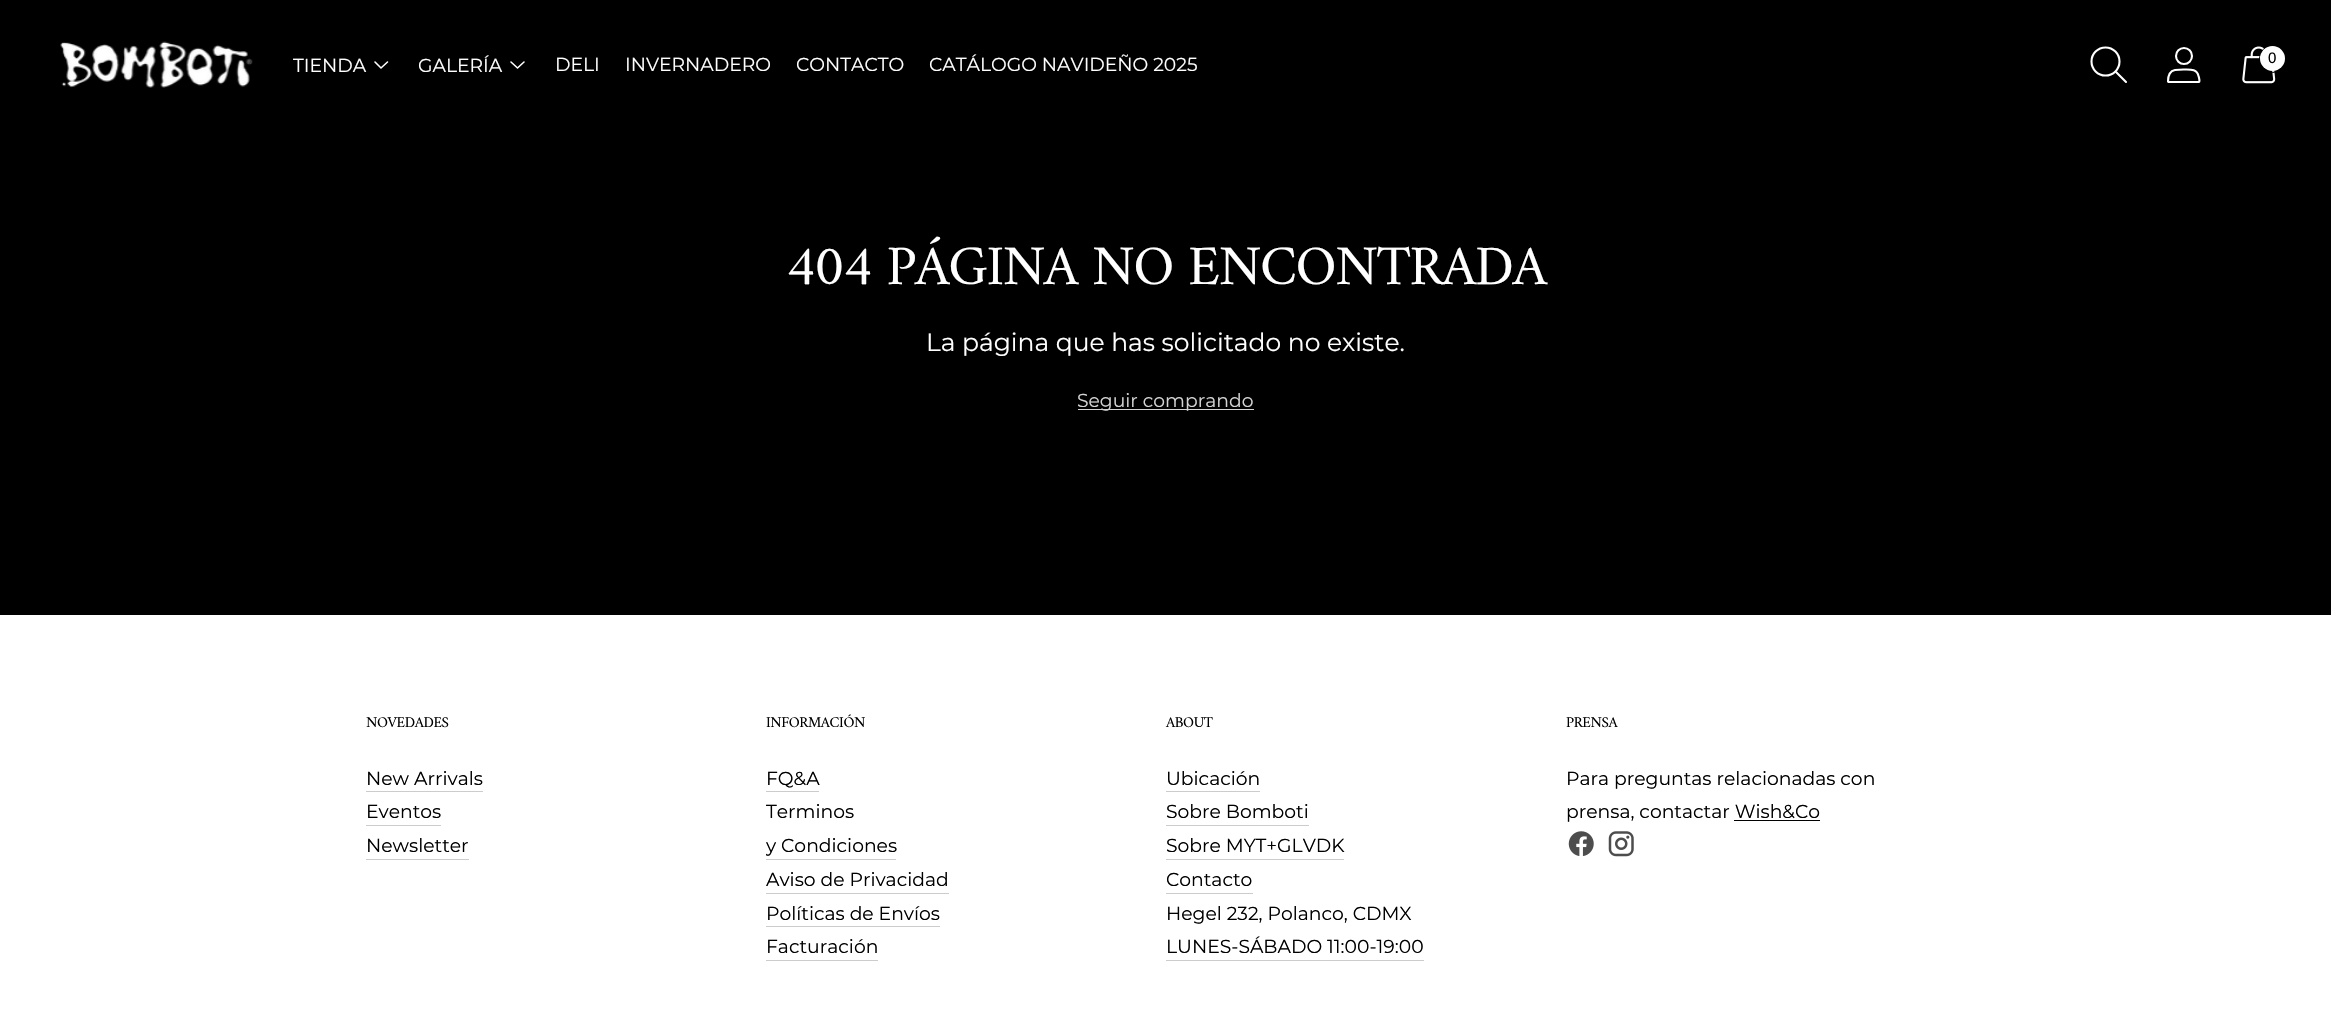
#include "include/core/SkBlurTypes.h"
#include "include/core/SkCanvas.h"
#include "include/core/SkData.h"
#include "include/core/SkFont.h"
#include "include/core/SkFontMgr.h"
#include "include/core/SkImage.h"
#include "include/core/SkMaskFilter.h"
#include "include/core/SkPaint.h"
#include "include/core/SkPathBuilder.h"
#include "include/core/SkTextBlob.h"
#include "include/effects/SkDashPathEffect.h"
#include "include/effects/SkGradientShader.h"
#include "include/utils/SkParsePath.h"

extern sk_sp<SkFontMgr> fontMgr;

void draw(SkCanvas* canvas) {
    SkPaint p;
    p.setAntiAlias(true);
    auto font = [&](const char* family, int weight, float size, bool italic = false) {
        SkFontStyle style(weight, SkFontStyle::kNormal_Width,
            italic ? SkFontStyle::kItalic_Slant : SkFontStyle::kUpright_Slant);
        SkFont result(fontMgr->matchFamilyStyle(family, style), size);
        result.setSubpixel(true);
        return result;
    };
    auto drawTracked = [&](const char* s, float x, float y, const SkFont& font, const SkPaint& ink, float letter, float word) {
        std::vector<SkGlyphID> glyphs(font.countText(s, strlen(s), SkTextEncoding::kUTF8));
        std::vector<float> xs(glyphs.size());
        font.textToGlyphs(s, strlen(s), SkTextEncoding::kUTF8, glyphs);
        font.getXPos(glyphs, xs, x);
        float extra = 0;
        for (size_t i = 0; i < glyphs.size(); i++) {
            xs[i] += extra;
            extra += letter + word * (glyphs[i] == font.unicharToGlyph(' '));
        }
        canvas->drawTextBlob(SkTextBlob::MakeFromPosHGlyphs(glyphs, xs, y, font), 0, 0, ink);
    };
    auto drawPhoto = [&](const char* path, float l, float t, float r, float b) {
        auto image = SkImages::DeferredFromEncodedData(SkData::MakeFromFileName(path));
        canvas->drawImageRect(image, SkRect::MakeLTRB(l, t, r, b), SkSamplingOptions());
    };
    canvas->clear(0xFF000000);
    drawPhoto("media/1.png", 60, 41, 253, 88);
    auto font1 = font("Montserrat", 400, 18.75f);
    p.setColor(0xFFFFFFFF);
    canvas->drawString("TIENDA", 293, 72, font1, p);
    p.setStyle(SkPaint::kStroke_Style);
    p.setStrokeWidth(1.6f);
    p.setStrokeCap(SkPaint::kRound_Cap);
    p.setStrokeJoin(SkPaint::kRound_Join);
    canvas->drawPath(SkPathBuilder().moveTo(375, 62).lineTo(381, 68).lineTo(387.5f, 62).detach(), p);
    p.setStyle(SkPaint::kFill_Style);
    canvas->drawString("GALERÍA", 418, 72, font1, p);
    p.setStyle(SkPaint::kStroke_Style);
    canvas->drawPath(SkPathBuilder().moveTo(511, 62).lineTo(517.5f, 68).lineTo(524, 62).detach(), p);
    p.setStyle(SkPaint::kFill_Style);
    {
        const struct { const char* s; float x, y; } items[] = {
            {"DELI", 555, 71},
            {"INVERNADERO", 625, 71},
            {"CONTACTO", 796, 71},
            {"CATÁLOGO NAVIDEÑO 2025", 929, 71},
        };
        for (auto [s, x, y] : items) {
            canvas->drawString(s, x, y, font1, p);
        }
    }
    p.setStyle(SkPaint::kStroke_Style);
    p.setStrokeWidth(2.1f);
    p.setStrokeCap(SkPaint::kButt_Cap);
    p.setStrokeJoin(SkPaint::kMiter_Join);
    canvas->drawCircle(2105.5f, 61.5f, 14, p);
    p.setStrokeCap(SkPaint::kRound_Cap);
    p.setStrokeJoin(SkPaint::kRound_Join);
    canvas->drawPath(SkPathBuilder().moveTo(2116, 72).lineTo(2126, 82).detach(), p);
    p.setStrokeCap(SkPaint::kButt_Cap);
    p.setStrokeJoin(SkPaint::kMiter_Join);
    canvas->drawCircle(2184, 56, 8, p);
    p.setStrokeCap(SkPaint::kRound_Cap);
    p.setStrokeJoin(SkPaint::kRound_Join);
    canvas->drawPath(SkPathBuilder().moveTo(2199, 82).cubicTo(2200, 82, 2199, 77, 2198.5f, 76).cubicTo(2197, 68.5f, 2190, 69.5f, 2183.5f, 69.5f).lineTo(2175, 70).cubicTo(2169.5f, 71, 2168, 77, 2168, 81.5f).lineTo(2168.5f, 82).close().detach(), p);
    drawPhoto("media/2.png", 2242, 46, 2276, 84);
    p.setStrokeWidth(1);
    p.setStrokeCap(SkPaint::kButt_Cap);
    p.setStrokeJoin(SkPaint::kMiter_Join);
    p.setColor(0xFF000000);
    canvas->drawRoundRect(SkRect::MakeLTRB(2259.5f, 45.5f, 2285.5f, 72.5f), 13, 13, p);
    p.setStyle(SkPaint::kFill_Style);
    p.setColor(0xFFFFFFFF);
    canvas->drawCircle(2272.5f, 58.5f, 12.5f, p);
    auto font2 = font("Liberation Sans", 400, 15);
    p.setColor(0xFF000000);
    canvas->drawString("0", 2268, 63, font2, p);
    auto font3 = font("Amiri", 400, 56.25f);
    p.setColor(0xFFFFFFFF);
    drawTracked("404 PÁGINA NO ENCONTRADA", 786, 284, font3, p, -1.4f, 0);
    auto font4 = font("Montserrat", 400, 25);
    canvas->drawString("La página que has solicitado no existe.", 926, 351, font4, p);
    p.setColor(0xFFD4D4D4);
    canvas->drawRect(SkRect::MakeLTRB(1078, 409, 1254, 410), p);
    canvas->drawString("Seguir comprando", 1077, 407, font1, p);
    p.setColor(0xFFFFFFFF);
    canvas->drawRect(SkRect::MakeLTRB(0, 615, 2331, 1023), p);
    auto font5 = font("Amiri", 400, 15);
    p.setColor(0xFF000000);
    drawTracked("NOVEDADES", 366, 727, font5, p, -0.4f, 0);
    canvas->drawString("New Arrivals", 366, 785, font1, p);
    p.setColor(0xFFCCCCCC);
    canvas->drawRect(SkRect::MakeLTRB(366, 791, 483, 792), p);
    p.setColor(0xFF000000);
    canvas->drawString("Eventos", 366, 818, font1, p);
    p.setColor(0xFFCCCCCC);
    canvas->drawRect(SkRect::MakeLTRB(366, 825, 441, 826), p);
    p.setColor(0xFF000000);
    canvas->drawString("Newsletter", 366, 852, font1, p);
    p.setColor(0xFFCCCCCC);
    canvas->drawRect(SkRect::MakeLTRB(366, 859, 469, 860), p);
    p.setColor(0xFF000000);
    drawTracked("INFORMACIÓN", 766, 727, font5, p, -0.4f, 0);
    canvas->drawString("FQ&A", 766, 785, font1, p);
    p.setColor(0xFFCCCCCC);
    canvas->drawRect(SkRect::MakeLTRB(766, 791, 819, 792), p);
    p.setColor(0xFF000000);
    canvas->drawString("Terminos", 766, 818, font1, p);
    canvas->save();
    canvas->clipRect(SkRect::MakeLTRB(766, 795, 1166, 863));
    canvas->drawString("y Condiciones", 766, 852, font1, p);
    canvas->restore();
    p.setColor(0xFFCCCCCC);
    canvas->drawRect(SkRect::MakeLTRB(766, 859, 896, 860), p);
    p.setColor(0xFF000000);
    canvas->drawString("Aviso de Privacidad", 766, 886, font1, p);
    p.setColor(0xFFCCCCCC);
    canvas->drawRect(SkRect::MakeLTRB(766, 893, 949, 894), p);
    p.setColor(0xFF000000);
    canvas->drawString("Políticas de Envíos", 766, 920, font1, p);
    p.setColor(0xFFCCCCCC);
    canvas->drawRect(SkRect::MakeLTRB(766, 926, 940, 927), p);
    p.setColor(0xFF000000);
    canvas->drawString("Facturación", 766, 953, font1, p);
    p.setColor(0xFFCCCCCC);
    canvas->drawRect(SkRect::MakeLTRB(766, 960, 878, 961), p);
    p.setColor(0xFF000000);
    drawTracked("ABOUT", 1166, 727, font5, p, -0.4f, 0);
    canvas->drawString("Ubicación", 1166, 785, font1, p);
    p.setColor(0xFFCCCCCC);
    canvas->drawRect(SkRect::MakeLTRB(1166, 791, 1260, 792), p);
    p.setColor(0xFF000000);
    canvas->drawString("Sobre Bomboti", 1166, 818, font1, p);
    p.setColor(0xFFCCCCCC);
    canvas->drawRect(SkRect::MakeLTRB(1166, 825, 1309, 826), p);
    p.setColor(0xFF000000);
    canvas->drawString("Sobre MYT+GLVDK", 1166, 852, font1, p);
    p.setColor(0xFFCCCCCC);
    canvas->drawRect(SkRect::MakeLTRB(1166, 859, 1344, 860), p);
    p.setColor(0xFF000000);
    canvas->drawString("Contacto", 1166, 886, font1, p);
    p.setColor(0xFFCCCCCC);
    canvas->drawRect(SkRect::MakeLTRB(1166, 893, 1253, 894), p);
    p.setColor(0xFF000000);
    canvas->drawString("Hegel 232, Polanco, CDMX", 1166, 920, font1, p);
    canvas->drawString("LUNES-SÁBADO 11:00-19:00", 1166, 953, font1, p);
    p.setColor(0xFFCCCCCC);
    canvas->drawRect(SkRect::MakeLTRB(1166, 960, 1424, 961), p);
    p.setColor(0xFF000000);
    drawTracked("PRENSA", 1566, 727, font5, p, -0.4f, 0);
    canvas->drawString("Para preguntas relacionadas con", 1566, 785, font1, p);
    canvas->drawString("prensa, contactar Wish&Co", 1566, 818, font1, p);
    canvas->drawRect(SkRect::MakeLTRB(1734, 820, 1820, 821), p);
    drawPhoto("media/3.png", 1568, 831, 1594, 856);
    drawPhoto("media/4.png", 1608, 831, 1634, 857);
}
